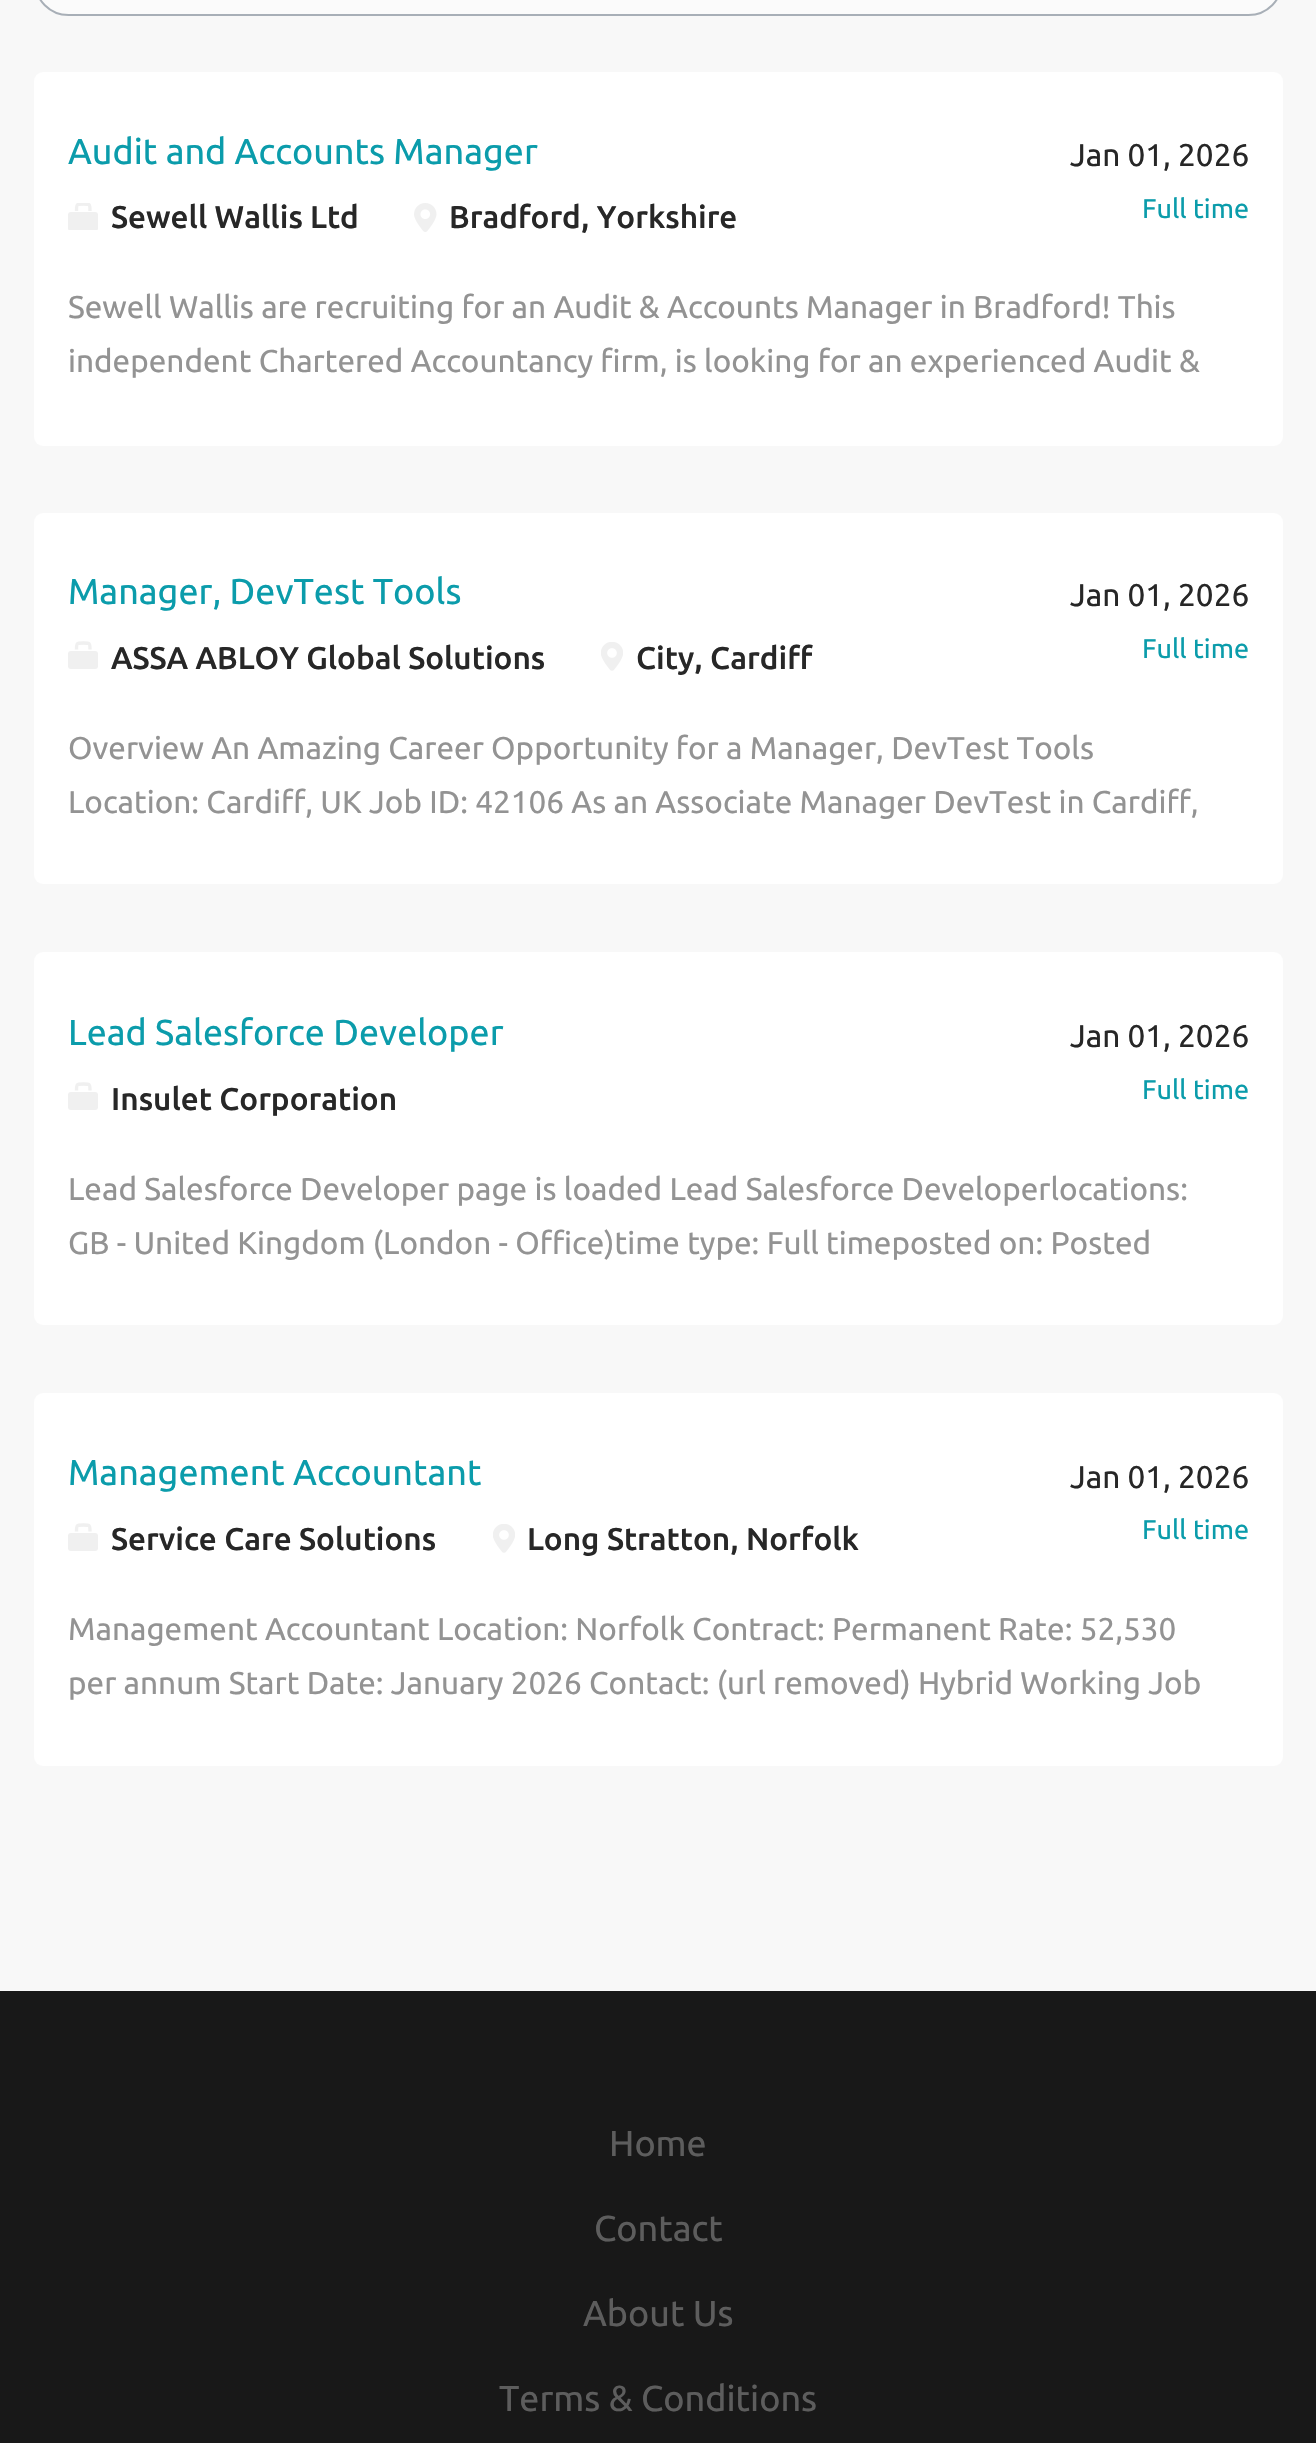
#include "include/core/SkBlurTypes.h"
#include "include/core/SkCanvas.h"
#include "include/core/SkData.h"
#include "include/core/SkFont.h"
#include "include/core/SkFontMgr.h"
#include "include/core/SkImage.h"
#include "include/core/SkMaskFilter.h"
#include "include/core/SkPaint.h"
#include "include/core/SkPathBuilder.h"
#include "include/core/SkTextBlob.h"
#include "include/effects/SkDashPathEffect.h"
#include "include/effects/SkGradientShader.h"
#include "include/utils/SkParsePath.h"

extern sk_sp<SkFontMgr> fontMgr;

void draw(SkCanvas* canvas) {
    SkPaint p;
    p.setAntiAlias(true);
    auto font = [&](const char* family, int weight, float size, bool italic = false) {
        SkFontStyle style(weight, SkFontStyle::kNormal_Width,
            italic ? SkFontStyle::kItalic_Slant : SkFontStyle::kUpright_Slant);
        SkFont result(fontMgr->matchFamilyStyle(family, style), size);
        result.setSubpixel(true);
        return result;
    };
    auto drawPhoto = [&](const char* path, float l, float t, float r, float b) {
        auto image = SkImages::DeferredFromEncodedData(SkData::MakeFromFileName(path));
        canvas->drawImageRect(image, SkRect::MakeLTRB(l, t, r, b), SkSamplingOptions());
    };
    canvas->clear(0xFFF8F8F8);
    p.setColor(0xFFFBFBFB);
    canvas->drawRoundRect(SkRect::MakeLTRB(35, -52, 1282, 15), 49.5f, 49.5f, p);
    p.setStyle(SkPaint::kStroke_Style);
    p.setStrokeWidth(2);
    p.setColor(0xFFA8AFB7);
    canvas->drawRoundRect(SkRect::MakeLTRB(35, -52, 1282, 15), 49.5f, 49.5f, p);
    p.setStyle(SkPaint::kFill_Style);
    p.setColor(0xFFFFFFFF);
    canvas->drawRoundRect(SkRect::MakeLTRB(34, 72, 1283, 446), 9, 9, p);
    auto font1 = font("Ubuntu", 400, 36);
    p.setColor(0xFF0B9CAB);
    canvas->drawString("Audit and Accounts Manager", 68, 164, font1, p);
    canvas->save();
    canvas->clipRect(SkRect::MakeLTRB(68, 203, 99, 230));
    p.setColor(0xFFF0F0F0);
    canvas->drawRoundRect(SkRect::MakeLTRB(68, 212, 98, 231), 3, 3, p);
    p.setStyle(SkPaint::kStroke_Style);
    p.setStrokeWidth(3.3f);
    canvas->drawPath(SkPathBuilder().moveTo(76.5f, 211).cubicTo(76.5f, 204, 76.5f, 204, 83.5f, 204).cubicTo(90, 204, 90, 204, 90, 211).detach(), p);
    canvas->restore();
    auto font2 = font("Ubuntu", 500, 31.5f);
    p.setStyle(SkPaint::kFill_Style);
    p.setColor(0xFF272727);
    canvas->drawString("Sewell Wallis Ltd", 111, 228, font2, p);
    drawPhoto("media/1.png", 414, 203, 437, 232);
    canvas->drawString("Bradford, Yorkshire", 449, 228, font2, p);
    auto font3 = font("Ubuntu", 400, 31.5f);
    canvas->drawString("Jan 01, 2026", 1070, 166, font3, p);
    auto font4 = font("Ubuntu", 400, 27);
    p.setColor(0xFF0B9CAB);
    canvas->drawString("Full time", 1142, 218, font4, p);
    p.setColor(0xFF939393);
    canvas->drawString("Sewell Wallis are recruiting for an Audit & Accounts Manager in Bradford! This", 68, 318, font3, p);
    canvas->drawString("independent Chartered Accountancy firm, is looking for an experienced Audit &", 68, 372, font3, p);
    p.setColor(0xFFFFFFFF);
    canvas->drawRoundRect(SkRect::MakeLTRB(34, 513, 1283, 884), 9, 9, p);
    p.setColor(0xFF0B9CAB);
    canvas->drawString("Manager, DevTest Tools", 68, 604, font1, p);
    p.setColor(0xFFF0F0F0);
    canvas->drawRoundRect(SkRect::MakeLTRB(68, 651, 98, 669), 3, 3, p);
    p.setStyle(SkPaint::kStroke_Style);
    canvas->drawPath(SkPathBuilder().moveTo(76.5f, 649.5f).cubicTo(76.5f, 643, 76.5f, 643, 83.5f, 643).cubicTo(90, 643, 90, 643, 90, 649.5f).detach(), p);
    p.setStyle(SkPaint::kFill_Style);
    p.setColor(0xFF272727);
    canvas->drawString("ASSA ABLOY Global Solutions", 111, 669, font2, p);
    drawPhoto("media/2.png", 601, 642, 623, 671);
    canvas->drawString("City, Cardiff", 636, 669, font2, p);
    canvas->drawString("Jan 01, 2026", 1070, 606, font3, p);
    p.setColor(0xFF0B9CAB);
    canvas->drawString("Full time", 1142, 658, font4, p);
    p.setColor(0xFF939393);
    canvas->drawString("Overview An Amazing Career Opportunity for a Manager, DevTest Tools", 68, 759, font3, p);
    canvas->drawString("Location: Cardiff, UK Job ID: 42106 As an Associate Manager DevTest in Cardiff,", 68, 813, font3, p);
    p.setColor(0xFFFFFFFF);
    canvas->drawRoundRect(SkRect::MakeLTRB(34, 952, 1283, 1325), 9, 9, p);
    p.setColor(0xFF0B9CAB);
    canvas->drawString("Lead Salesforce Developer", 68, 1045, font1, p);
    p.setColor(0xFFF0F0F0);
    canvas->drawRoundRect(SkRect::MakeLTRB(68, 1092, 98, 1110), 3, 3, p);
    p.setStyle(SkPaint::kStroke_Style);
    canvas->drawPath(SkPathBuilder().moveTo(76.5f, 1090.5f).cubicTo(76.5f, 1084, 76.5f, 1084, 83.5f, 1084).cubicTo(90, 1084, 90, 1084, 90, 1090.5f).detach(), p);
    p.setStyle(SkPaint::kFill_Style);
    p.setColor(0xFF272727);
    canvas->drawString("Insulet Corporation", 111, 1110, font2, p);
    canvas->drawString("Jan 01, 2026", 1070, 1047, font3, p);
    p.setColor(0xFF0B9CAB);
    canvas->drawString("Full time", 1142, 1099, font4, p);
    p.setColor(0xFF939393);
    canvas->drawString("Lead Salesforce Developer page is loaded Lead Salesforce Developerlocations:", 68, 1200, font3, p);
    canvas->drawString("GB - United Kingdom (London - Office)time type: Full timeposted on: Posted", 68, 1254, font3, p);
    p.setColor(0xFFFFFFFF);
    canvas->drawRoundRect(SkRect::MakeLTRB(34, 1393, 1283, 1766), 9, 9, p);
    p.setColor(0xFF0B9CAB);
    canvas->drawString("Management Accountant", 68, 1485, font1, p);
    p.setColor(0xFFF0F0F0);
    canvas->drawRoundRect(SkRect::MakeLTRB(68, 1533, 98, 1551), 3, 3, p);
    p.setStyle(SkPaint::kStroke_Style);
    canvas->drawPath(SkPathBuilder().moveTo(76.5f, 1531.5f).cubicTo(76.5f, 1525, 76.5f, 1525, 83.5f, 1525).cubicTo(90, 1525, 90, 1525, 90, 1531.5f).detach(), p);
    p.setStyle(SkPaint::kFill_Style);
    p.setColor(0xFF272727);
    canvas->drawString("Service Care Solutions", 111, 1550, font2, p);
    drawPhoto("media/2.png", 493, 1524, 515, 1553);
    canvas->drawString("Long Stratton, Norfolk", 527, 1550, font2, p);
    canvas->drawString("Jan 01, 2026", 1070, 1488, font3, p);
    p.setColor(0xFF0B9CAB);
    canvas->drawString("Full time", 1142, 1539, font4, p);
    p.setColor(0xFF939393);
    canvas->drawString("Management Accountant Location: Norfolk Contract: Permanent Rate: 52,530", 68, 1640, font3, p);
    canvas->drawString("per annum Start Date: January 2026 Contact: (url removed) Hybrid Working Job", 68, 1694, font3, p);
    p.setColor(0xFF181818);
    canvas->drawRect(SkRect::MakeLTRB(0, 1991, 1316, 2443), p);
    p.setColor(0xFF5D5D5D);
    {
        const struct { const char* s; float x, y; } items[] = {
            {"Home", 609, 2156},
            {"Contact", 594, 2241},
            {"About Us", 583, 2326},
            {"Terms & Conditions", 499, 2411},
        };
        for (auto [s, x, y] : items) {
            canvas->drawString(s, x, y, font1, p);
        }
    }
}
